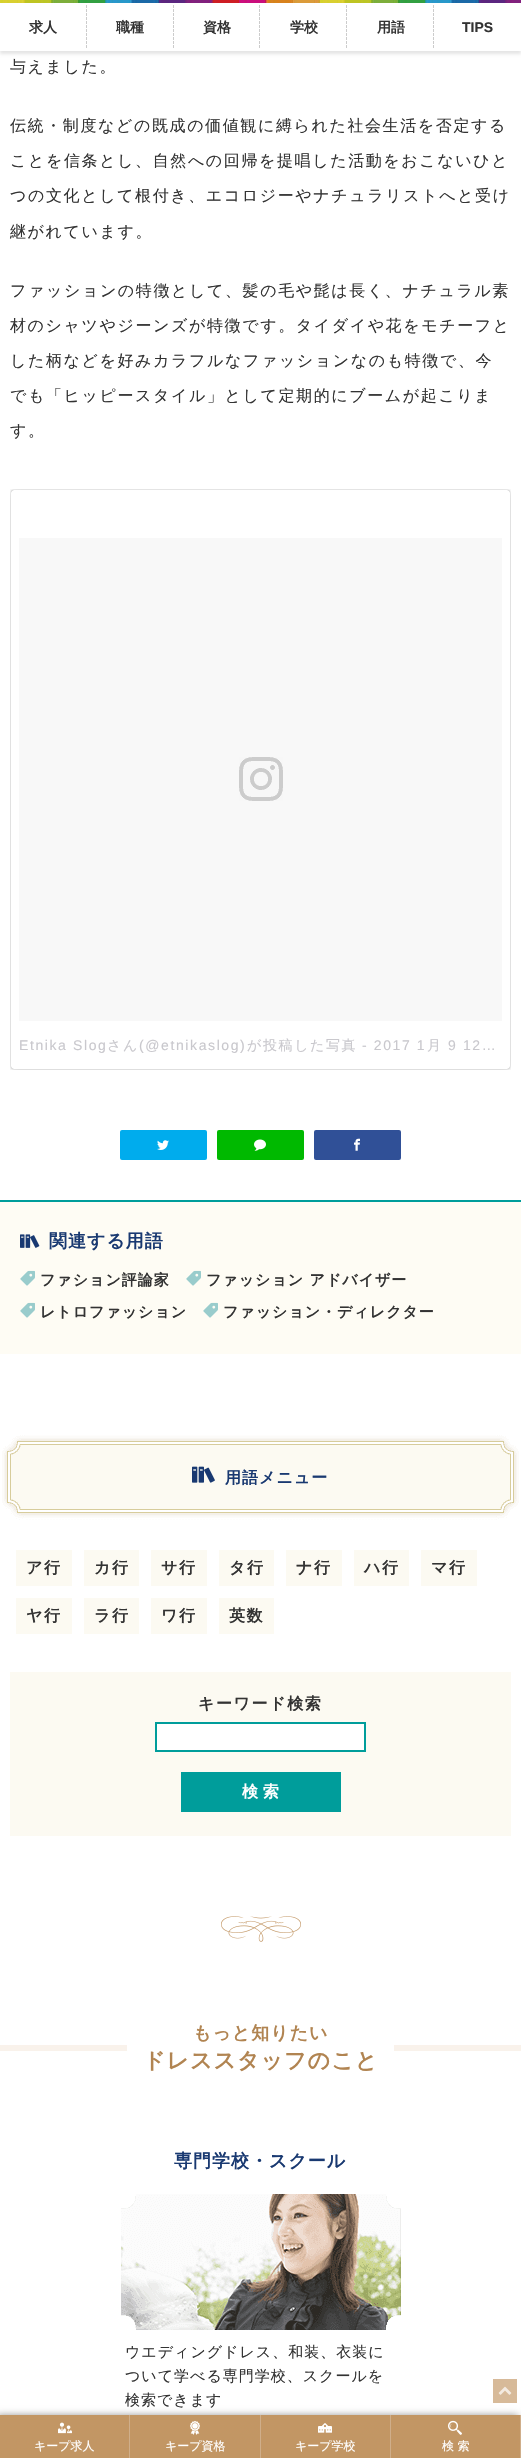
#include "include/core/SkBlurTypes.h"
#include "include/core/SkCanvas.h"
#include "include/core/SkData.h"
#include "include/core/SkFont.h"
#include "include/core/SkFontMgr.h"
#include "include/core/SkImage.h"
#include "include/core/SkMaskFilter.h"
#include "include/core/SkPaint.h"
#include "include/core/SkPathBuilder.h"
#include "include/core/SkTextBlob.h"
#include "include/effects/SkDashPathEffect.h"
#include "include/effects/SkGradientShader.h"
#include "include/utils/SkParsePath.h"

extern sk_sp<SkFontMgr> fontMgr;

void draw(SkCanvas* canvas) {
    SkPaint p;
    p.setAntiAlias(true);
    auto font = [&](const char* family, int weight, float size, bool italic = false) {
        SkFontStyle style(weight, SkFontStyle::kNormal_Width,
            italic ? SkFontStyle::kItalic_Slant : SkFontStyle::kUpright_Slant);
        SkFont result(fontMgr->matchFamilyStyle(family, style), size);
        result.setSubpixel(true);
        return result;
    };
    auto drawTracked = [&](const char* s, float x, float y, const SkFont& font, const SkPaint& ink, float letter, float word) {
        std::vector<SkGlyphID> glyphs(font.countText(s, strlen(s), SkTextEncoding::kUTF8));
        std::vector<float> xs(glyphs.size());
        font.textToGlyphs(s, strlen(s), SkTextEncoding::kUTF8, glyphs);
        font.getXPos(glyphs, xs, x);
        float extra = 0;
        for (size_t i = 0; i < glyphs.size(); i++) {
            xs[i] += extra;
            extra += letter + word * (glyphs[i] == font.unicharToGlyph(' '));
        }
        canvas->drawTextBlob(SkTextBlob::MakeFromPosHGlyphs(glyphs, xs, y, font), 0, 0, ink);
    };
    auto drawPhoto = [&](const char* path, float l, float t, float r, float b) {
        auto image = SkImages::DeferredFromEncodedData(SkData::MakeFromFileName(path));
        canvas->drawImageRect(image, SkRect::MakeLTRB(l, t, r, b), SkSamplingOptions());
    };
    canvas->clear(0xFFFFFFFF);
    p.setColor(0x1A000000);
    p.setMaskFilter(SkMaskFilter::MakeBlur(kNormal_SkBlurStyle, 1.5f));
    canvas->drawRect(SkRect::MakeLTRB(0, 3, 521, 54), p);
    p.setMaskFilter(nullptr);
    p.setColor(0xFFFFFFFF);
    canvas->drawRect(SkRect::MakeLTRB(0, 3, 521, 51), p);
    drawPhoto("media/1.png", 0, 0, 521, 3);
    drawPhoto("media/2.png", 86, 5, 87, 49);
    auto font1 = font("WenQuanYi Zen Hei", 700, 14);
    p.setColor(0xFF333333);
    canvas->drawString("求人", 29, 32, font1, p);
    drawPhoto("media/2.png", 173, 5, 174, 49);
    canvas->drawString("職種", 116, 32, font1, p);
    drawPhoto("media/2.png", 259, 5, 260, 49);
    canvas->drawString("資格", 203, 32, font1, p);
    drawPhoto("media/2.png", 346, 5, 347, 49);
    canvas->drawString("学校", 290, 32, font1, p);
    drawPhoto("media/2.png", 433, 5, 434, 49);
    canvas->drawString("用語", 377, 32, font1, p);
    auto font2 = font("Liberation Sans", 700, 14);
    canvas->drawString("TIPS", 462, 32, font2, p);
    auto font3 = font("WenQuanYi Zen Hei", 500, 16);
    {
        const struct { const char* s; float x, y; } items[] = {
            {"与えました。", 10, 72},
            {"伝統・制度などの既成の価値観に縛られた社会生活を否定する", 10, 131},
            {"ことを信条とし、自然への回帰を提唱した活動をおこないひと", 10, 166},
            {"つの文化として根付き、エコロジーやナチュラリストへと受け", 10, 201},
            {"継がれています。", 10, 237},
            {"ファッションの特徴として、髪の毛や髭は長く、ナチュラル素", 10, 296},
            {"材のシャツやジーンズが特徴です。タイダイや花をモチーフと", 10, 331},
            {"した柄などを好みカラフルなファッションなのも特徴で、今", 10, 366},
            {"でも「ヒッピースタイル」として定期的にブームが起こりま", 10, 401},
            {"す。", 10, 436},
        };
        for (auto [s, x, y] : items) {
            drawTracked(s, x, y, font3, p, 1.6f, 0);
        }
    }
    canvas->save();
    canvas->clipRect(SkRect::MakeLTRB(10, 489, 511, 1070));
    p.setColor(0x26000000);
    p.setMaskFilter(SkMaskFilter::MakeBlur(kNormal_SkBlurStyle, 5));
    canvas->drawRoundRect(SkRect::MakeLTRB(11, 491, 510, 1070), 3, 3, p);
    p.setMaskFilter(nullptr);
    canvas->restore();
    p.setColor(0x80000000);
    p.setMaskFilter(SkMaskFilter::MakeBlur(kNormal_SkBlurStyle, 0.5f));
    canvas->drawRoundRect(SkRect::MakeLTRB(11, 490, 510, 1069), 3, 3, p);
    p.setMaskFilter(nullptr);
    p.setColor(0xFFFFFFFF);
    canvas->drawRoundRect(SkRect::MakeLTRB(11, 490, 510, 1069), 3, 3, p);
    p.setColor(0xFFF8F8F8);
    canvas->drawRect(SkRect::MakeLTRB(19, 538, 502, 1021), p);
    drawPhoto("media/3.png", 239, 757, 283, 801);
    auto font4 = font("Liberation Sans", 400, 14);
    p.setColor(0xFFC9C8CD);
    drawTracked("Etnika Slog", 19, 1050, font4, p, 1.6f, 0);
    auto font5 = font("WenQuanYi Zen Hei", 500, 14);
    drawTracked("さん", 107, 1050, font5, p, 1.6f, 0);
    drawTracked("(@etnikaslog)", 139, 1050, font4, p, 1.6f, 0);
    drawTracked("が投稿した写真", 247, 1050, font5, p, 1.6f, 0);
    drawTracked("- 2017 1", 362, 1050, font4, p, 1.6f, 0);
    drawTracked("月", 427, 1050, font5, p, 1.6f, 0);
    drawTracked("9 12…", 448, 1050, font4, p, 1.6f, 0);
    p.setColor(0xFF00ACED);
    canvas->drawRoundRect(SkRect::MakeLTRB(120, 1130, 207, 1160), 2, 2, p);
    drawPhoto("media/4.png", 157, 1140, 169, 1150);
    p.setColor(0xFF00B900);
    canvas->drawRoundRect(SkRect::MakeLTRB(217, 1130, 304, 1160), 2, 2, p);
    drawPhoto("media/5.png", 254, 1139, 266, 1151);
    p.setColor(0xFF305097);
    canvas->drawRoundRect(SkRect::MakeLTRB(314, 1130, 401, 1160), 2, 2, p);
    drawPhoto("media/6.png", 354, 1138, 360, 1151);
    p.setColor(0xFFFEFCF4);
    canvas->drawRect(SkRect::MakeLTRB(0, 1202, 521, 1354), p);
    p.setColor(0xFF009D9B);
    canvas->drawRect(SkRect::MakeLTRB(0, 1200, 521, 1202), p);
    drawPhoto("media/7.png", 20, 1234, 40, 1248);
    auto font6 = font("WenQuanYi Zen Hei", 700, 18);
    p.setColor(0xFF193971);
    drawTracked("関連する用語", 49, 1247, font6, p, 1, 0);
    drawPhoto("media/8.png", 20, 1270, 35, 1286);
    auto font7 = font("WenQuanYi Zen Hei", 700, 15);
    p.setColor(0xFF333333);
    drawTracked("ファション評論家", 40, 1285, font7, p, 1, 0);
    drawPhoto("media/8.png", 186, 1270, 201, 1286);
    drawTracked("ファッション アドバイザー", 206, 1285, font7, p, 1, 0);
    drawPhoto("media/8.png", 20, 1302, 35, 1318);
    drawTracked("レトロファッション", 40, 1317, font7, p, 1, 0);
    drawPhoto("media/8.png", 203, 1302, 218, 1318);
    drawTracked("ファッション・ディレクター", 223, 1317, font7, p, 1, 0);
    p.setColor(0xFFFCFAF2);
    canvas->drawRect(SkRect::MakeLTRB(11, 1445, 510, 1509), p);
    drawPhoto("media/9.png", 0, 1434, 521, 1520);
    drawPhoto("media/10.png", 192, 1466, 215, 1483);
    auto font8 = font("WenQuanYi Zen Hei", 700, 16);
    p.setColor(0xFF193971);
    drawTracked("用語メニュー", 225, 1483, font8, p, 1, 0);
    p.setColor(0xFFFCFAF2);
    canvas->drawRect(SkRect::MakeLTRB(16, 1550, 72, 1586), p);
    p.setColor(0xFF333333);
    drawTracked("ア行", 26, 1573, font8, p, 1.6f, 0);
    p.setColor(0xFFFCFAF2);
    canvas->drawRect(SkRect::MakeLTRB(84, 1550, 139, 1586), p);
    p.setColor(0xFF333333);
    drawTracked("カ行", 94, 1573, font8, p, 1.6f, 0);
    p.setColor(0xFFFCFAF2);
    canvas->drawRect(SkRect::MakeLTRB(151, 1550, 207, 1586), p);
    p.setColor(0xFF333333);
    drawTracked("サ行", 161, 1573, font8, p, 1.6f, 0);
    p.setColor(0xFFFCFAF2);
    canvas->drawRect(SkRect::MakeLTRB(219, 1550, 274, 1586), p);
    p.setColor(0xFF333333);
    drawTracked("タ行", 229, 1573, font8, p, 1.6f, 0);
    p.setColor(0xFFFCFAF2);
    canvas->drawRect(SkRect::MakeLTRB(286, 1550, 342, 1586), p);
    p.setColor(0xFF333333);
    drawTracked("ナ行", 296, 1573, font8, p, 1.6f, 0);
    p.setColor(0xFFFCFAF2);
    canvas->drawRect(SkRect::MakeLTRB(354, 1550, 409, 1586), p);
    p.setColor(0xFF333333);
    drawTracked("ハ行", 364, 1573, font8, p, 1.6f, 0);
    p.setColor(0xFFFCFAF2);
    canvas->drawRect(SkRect::MakeLTRB(421, 1550, 477, 1586), p);
    p.setColor(0xFF333333);
    drawTracked("マ行", 431, 1573, font8, p, 1.6f, 0);
    p.setColor(0xFFFCFAF2);
    canvas->drawRect(SkRect::MakeLTRB(16, 1598, 72, 1634), p);
    p.setColor(0xFF333333);
    drawTracked("ヤ行", 26, 1621, font8, p, 1.6f, 0);
    p.setColor(0xFFFCFAF2);
    canvas->drawRect(SkRect::MakeLTRB(84, 1598, 139, 1634), p);
    p.setColor(0xFF333333);
    drawTracked("ラ行", 94, 1621, font8, p, 1.6f, 0);
    p.setColor(0xFFFCFAF2);
    canvas->drawRect(SkRect::MakeLTRB(151, 1598, 207, 1634), p);
    p.setColor(0xFF333333);
    drawTracked("ワ行", 161, 1621, font8, p, 1.6f, 0);
    p.setColor(0xFFFCFAF2);
    canvas->drawRect(SkRect::MakeLTRB(219, 1598, 274, 1634), p);
    p.setColor(0xFF333333);
    drawTracked("英数", 229, 1621, font8, p, 1.6f, 0);
    p.setColor(0xFFFCFAF2);
    canvas->drawRect(SkRect::MakeLTRB(10, 1672, 511, 1836), p);
    p.setColor(0xFF333333);
    drawTracked("キーワード検索", 198, 1709, font8, p, 1.6f, 0);
    p.setColor(0xFFFFFFFF);
    canvas->drawRect(SkRect::MakeLTRB(156, 1723, 365, 1751), p);
    p.setStyle(SkPaint::kStroke_Style);
    p.setStrokeWidth(2);
    p.setColor(0xFF009D9B);
    canvas->drawRect(SkRect::MakeLTRB(156, 1723, 365, 1751), p);
    p.setStyle(SkPaint::kFill_Style);
    canvas->drawRect(SkRect::MakeLTRB(181, 1772, 341, 1812), p);
    p.setColor(0xFFFFFFFF);
    canvas->drawString("検 索", 242, 1797, font8, p);
    drawPhoto("media/11.png", 221, 1916, 301, 1942);
    p.setColor(0xFFF9F2EB);
    canvas->drawRect(SkRect::MakeLTRB(0, 2045, 521, 2051), p);
    p.setColor(0xFFFFFFFF);
    canvas->drawRect(SkRect::MakeLTRB(127, 2045, 394, 2051), p);
    p.setColor(0xFFB18451);
    drawTracked("もっと知りたい", 193, 2039, font6, p, 1, 0);
    auto font9 = font("WenQuanYi Zen Hei", 700, 22);
    drawTracked("ドレススタッフのこと", 143, 2068, font9, p, 1, 0);
    p.setColor(0xFF193971);
    drawTracked("専門学校・スクール", 174, 2167, font6, p, 1, 0);
    drawPhoto("media/12.png", 121, 2194, 401, 2330);
    auto font10 = font("WenQuanYi Zen Hei", 500, 15);
    p.setColor(0xFF333333);
    {
        const struct { const char* s; float x, y; } items[] = {
            {"ウエディングドレス、和装、衣装に", 125, 2357},
            {"ついて学べる専門学校、スクールを", 125, 2381},
            {"検索できます", 125, 2405},
        };
        for (auto [s, x, y] : items) {
            drawTracked(s, x, y, font10, p, 1, 0);
        }
    }
    p.setColor(0xFFD7BA99);
    canvas->drawRect(SkRect::MakeLTRB(493, 2379, 517, 2403), p);
    drawPhoto("media/13.png", 498, 2386, 512, 2395);
    p.setColor(0xFF999999);
    p.setMaskFilter(SkMaskFilter::MakeBlur(kNormal_SkBlurStyle, 3.5f));
    canvas->drawRect(SkRect::MakeLTRB(-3, 2415, 518, 2458), p);
    p.setMaskFilter(nullptr);
    p.setColor(0xFFC29664);
    canvas->drawRect(SkRect::MakeLTRB(0, 2415, 520, 2458), p);
    p.setColor(0xFFCFAE8A);
    canvas->drawRect(SkRect::MakeLTRB(129, 2415, 130, 2458), p);
    drawPhoto("media/14.png", 58, 2422, 72, 2434);
    auto font11 = font("WenQuanYi Zen Hei", 500, 12);
    p.setColor(0xFFFFFFFF);
    canvas->drawString("キープ求人", 34, 2450, font11, p);
    p.setColor(0xFFCFAE8A);
    canvas->drawRect(SkRect::MakeLTRB(260, 2415, 261, 2458), p);
    drawPhoto("media/15.png", 190, 2420, 200, 2435);
    p.setColor(0xFFFFFFFF);
    canvas->drawString("キープ資格", 165, 2450, font11, p);
    p.setColor(0xFFCFAE8A);
    canvas->drawRect(SkRect::MakeLTRB(390, 2415, 391, 2458), p);
    drawPhoto("media/16.png", 318, 2423, 332, 2433);
    p.setColor(0xFFFFFFFF);
    canvas->drawString("キープ学校", 295, 2450, font11, p);
    p.setColor(0xFFCFAE8A);
    canvas->drawRect(SkRect::MakeLTRB(520, 2415, 521, 2458), p);
    drawPhoto("media/17.png", 448, 2420, 462, 2435);
    p.setColor(0xFFFFFFFF);
    canvas->drawString("検 索", 442, 2450, font11, p);
}
